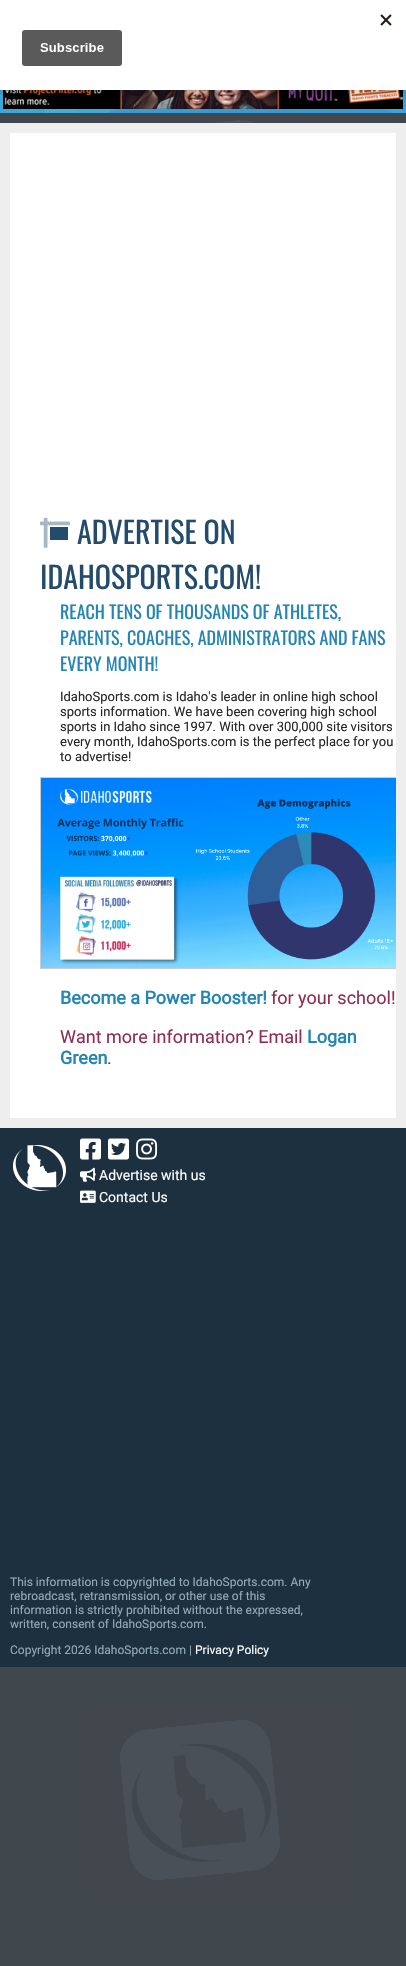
#include "include/core/SkBlurTypes.h"
#include "include/core/SkCanvas.h"
#include "include/core/SkData.h"
#include "include/core/SkFont.h"
#include "include/core/SkFontMgr.h"
#include "include/core/SkImage.h"
#include "include/core/SkMaskFilter.h"
#include "include/core/SkPaint.h"
#include "include/core/SkPathBuilder.h"
#include "include/core/SkTextBlob.h"
#include "include/effects/SkDashPathEffect.h"
#include "include/effects/SkGradientShader.h"
#include "include/utils/SkParsePath.h"

extern sk_sp<SkFontMgr> fontMgr;

void draw(SkCanvas* canvas) {
    SkPaint p;
    p.setAntiAlias(true);
    auto font = [&](const char* family, int weight, float size, bool italic = false) {
        SkFontStyle style(weight, SkFontStyle::kNormal_Width,
            italic ? SkFontStyle::kItalic_Slant : SkFontStyle::kUpright_Slant);
        SkFont result(fontMgr->matchFamilyStyle(family, style), size);
        result.setSubpixel(true);
        return result;
    };
    auto drawPhoto = [&](const char* path, float l, float t, float r, float b) {
        auto image = SkImages::DeferredFromEncodedData(SkData::MakeFromFileName(path));
        canvas->drawImageRect(image, SkRect::MakeLTRB(l, t, r, b), SkSamplingOptions());
    };
    canvas->clear(0xFFFFFFFF);
    drawPhoto("media/1.png", 0, 113, 406, 1966);
    drawPhoto("media/3.png", 0, 90, 406, 113);
    drawPhoto("media/4.png", 3, 90, 403, 109);
    p.setColor(0x33000000);
    p.setMaskFilter(SkMaskFilter::MakeBlur(kNormal_SkBlurStyle, 3));
    canvas->drawRect(SkRect::MakeLTRB(0, 3, 406, 93), p);
    p.setMaskFilter(nullptr);
    p.setColor(0xFFFFFFFF);
    canvas->drawRect(SkRect::MakeLTRB(0, 0, 406, 90), p);
    drawPhoto("media/2.png", 22, 14, 392, 66);
    {
        const struct { float l, t, r, b; SkColor color; } items[] = {
            {0, 123, 406, 1128, 0xFFEEEEEE},
            {10, 133, 396, 1118, 0xFFFFFFFF},
            {50, 527, 68, 540, 0xFF234C6C},
        };
        for (auto [l, t, r, b, color] : items) {
            p.setColor(color);
            canvas->drawRect(SkRect::MakeLTRB(l, t, r, b), p);
        }
    }
    drawPhoto("media/5.png", 40, 517, 70, 548);
    auto font1 = font("Oswald", 400, 30);
    canvas->drawString("ADVERTISE ON", 77, 544, font1, p);
    canvas->drawString("IDAHOSPORTS.COM!", 40, 589, font1, p);
    auto font2 = font("Oswald", 400, 18);
    p.setColor(0xFF2385B3);
    {
        const struct { const char* s; float x, y; } items[] = {
            {"REACH TENS OF THOUSANDS OF ATHLETES,", 60, 619},
            {"PARENTS, COACHES, ADMINISTRATORS AND FANS", 60, 645},
            {"EVERY MONTH!", 60, 671},
        };
        for (auto [s, x, y] : items) {
            canvas->drawString(s, x, y, font2, p);
        }
    }
    auto font3 = font("Roboto", 400, 13);
    p.setColor(0xFF272727);
    {
        const struct { const char* s; float x, y; } items[] = {
            {"IdahoSports.com is Idaho's leader in online high school", 60, 701},
            {"sports information. We have been covering high school", 60, 716},
            {"sports in Idaho since 1997. With over 300,000 site visitors", 60, 731},
            {"every month, IdahoSports.com is the perfect place for you", 60, 746},
            {"to advertise!", 60, 761},
        };
        for (auto [s, x, y] : items) {
            canvas->drawString(s, x, y, font3, p);
        }
    }
    canvas->save();
    canvas->clipRect(SkRect::MakeLTRB(10, 133, 396, 1118));
    p.setStyle(SkPaint::kStroke_Style);
    p.setStrokeWidth(1);
    p.setColor(0xFFCCCCCC);
    canvas->drawRect(SkRect::MakeLTRB(40.5f, 777.5f, 405.5f, 968.5f), p);
    canvas->restore();
    drawPhoto("media/6.png", 41, 778, 396, 968);
    auto font4 = font("Roboto", 700, 18);
    p.setStyle(SkPaint::kFill_Style);
    p.setColor(0xFF2385B3);
    canvas->drawString("Become a Power Booster!", 60, 1004, font4, p);
    auto font5 = font("Roboto", 400, 18);
    p.setColor(0xFF8F2D56);
    canvas->drawString("for your school!", 271, 1004, font5, p);
    canvas->drawString("Want more information? Email", 60, 1043, font5, p);
    p.setColor(0xFF2385B3);
    canvas->drawString("Logan", 307, 1043, font4, p);
    canvas->drawString("Green", 60, 1064, font4, p);
    p.setColor(0xFF8F2D56);
    canvas->drawString(".", 107, 1064, font5, p);
    p.setColor(0xFF1D3040);
    canvas->drawRect(SkRect::MakeLTRB(0, 1128, 406, 1667), p);
    drawPhoto("media/7.png", 13, 1145, 66, 1191);
    drawPhoto("media/8.png", 80, 1138, 101, 1160);
    drawPhoto("media/9.png", 108, 1138, 129, 1160);
    drawPhoto("media/10.png", 136, 1138, 158, 1160);
    drawPhoto("media/11.png", 80, 1167, 96, 1182);
    auto font6 = font("Roboto", 400, 14);
    p.setColor(0xFFFFFFFF);
    canvas->drawString("Advertise with us", 99, 1180, font6, p);
    drawPhoto("media/12.png", 80, 1190, 96, 1203);
    canvas->drawString("Contact Us", 99, 1202, font6, p);
    auto font7 = font("Roboto", 400, 12);
    p.setColor(0xFF93ABBC);
    {
        const struct { const char* s; float x, y; } items[] = {
            {"This information is copyrighted to IdahoSports.com. Any", 10, 1586},
            {"rebroadcast, retransmission, or other use of this", 10, 1600},
            {"information is strictly prohibited without the expressed,", 10, 1614},
            {"written, consent of IdahoSports.com.", 10, 1628},
            {"Copyright 2026 IdahoSports.com |", 10, 1654},
        };
        for (auto [s, x, y] : items) {
            canvas->drawString(s, x, y, font7, p);
        }
    }
    p.setColor(0xFFFFFFFF);
    canvas->drawString("Privacy Policy", 195, 1654, font7, p);
}
